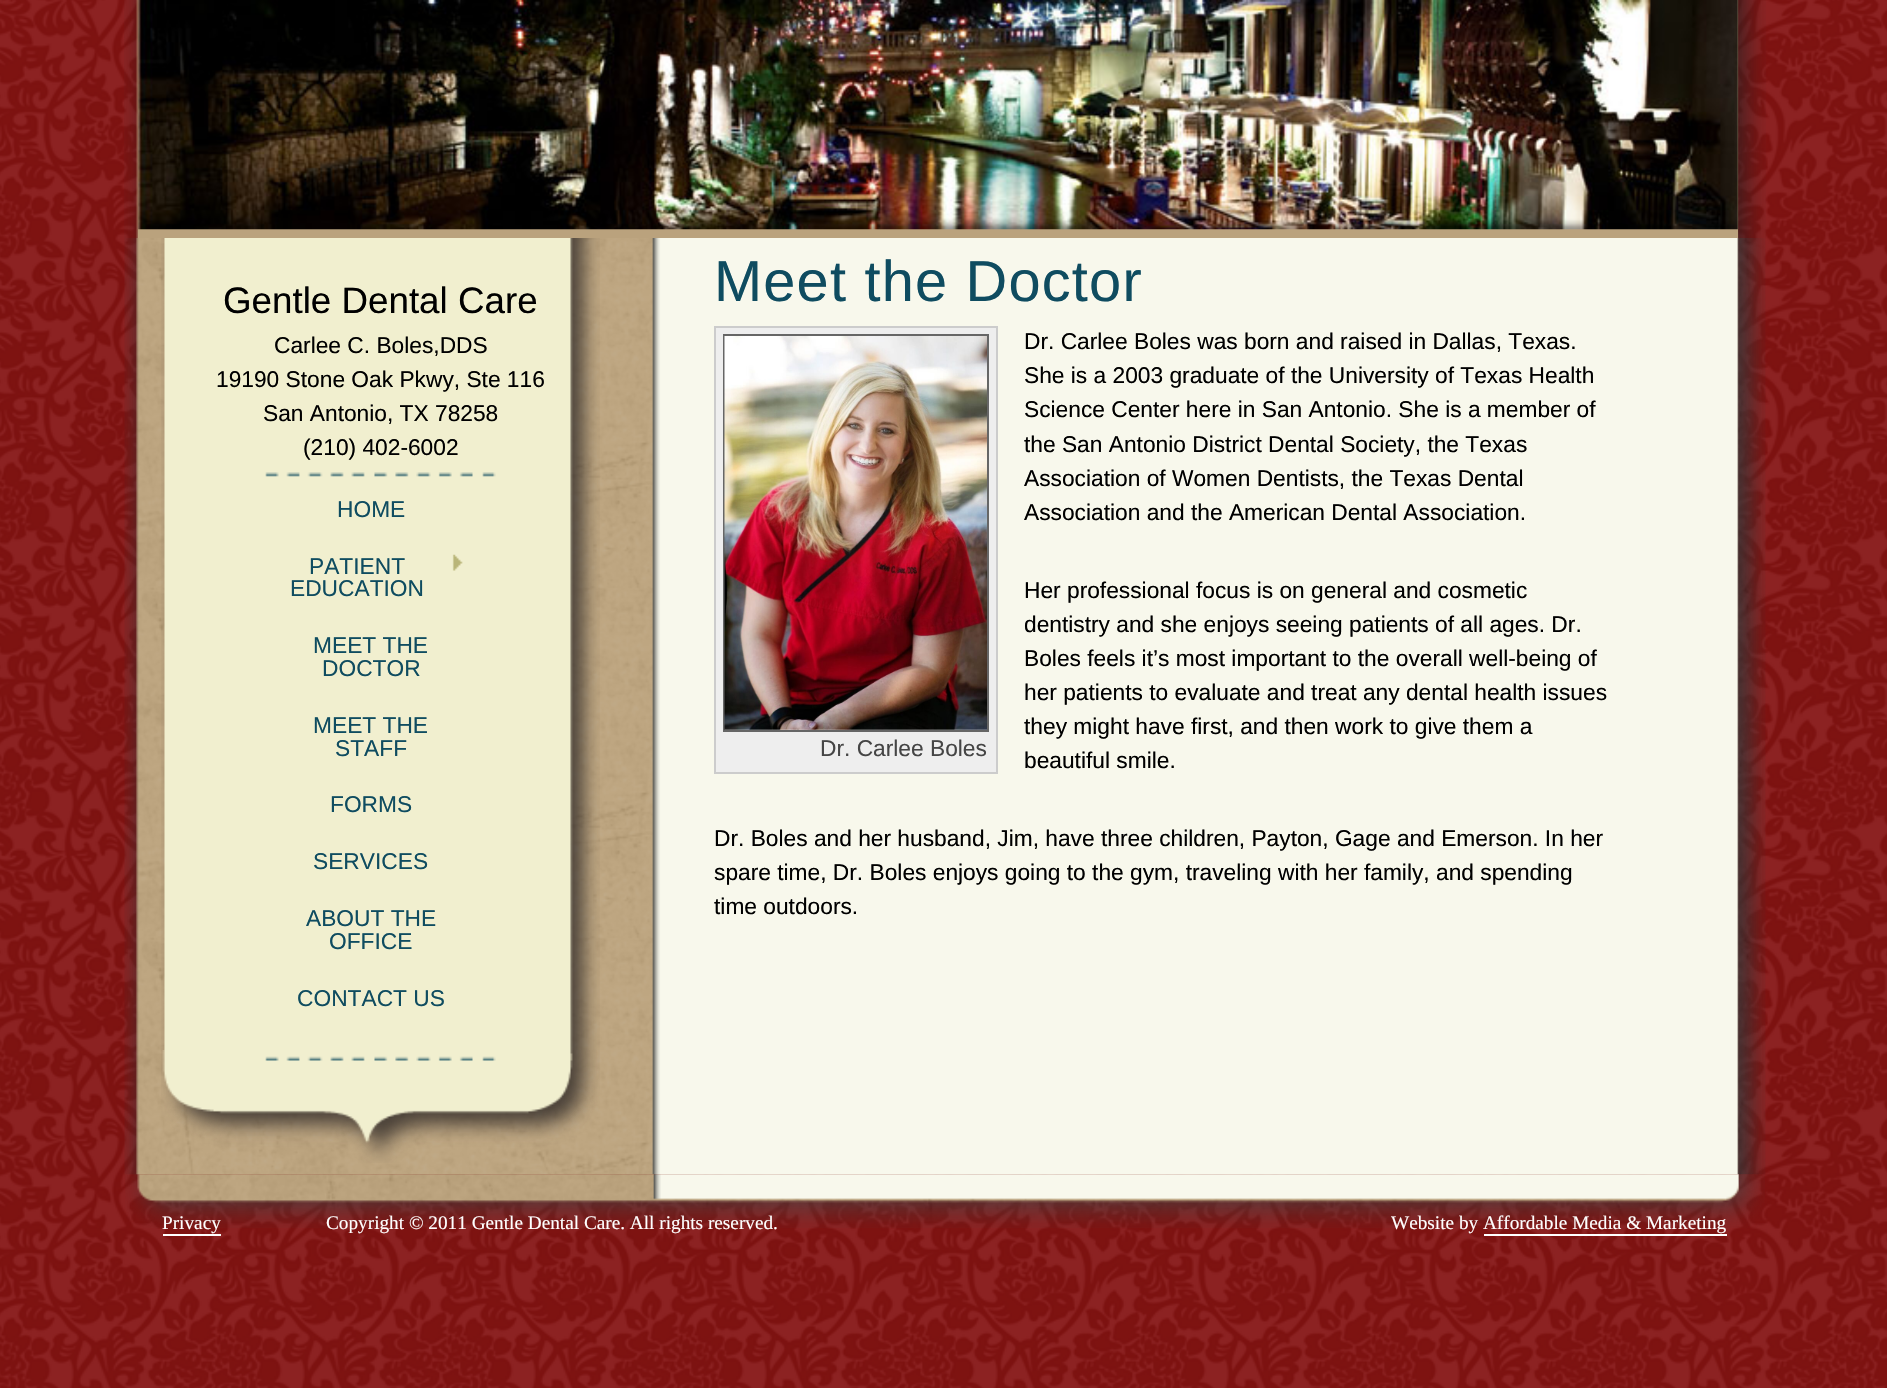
#include "include/core/SkBlurTypes.h"
#include "include/core/SkCanvas.h"
#include "include/core/SkData.h"
#include "include/core/SkFont.h"
#include "include/core/SkFontMgr.h"
#include "include/core/SkImage.h"
#include "include/core/SkMaskFilter.h"
#include "include/core/SkPaint.h"
#include "include/core/SkPathBuilder.h"
#include "include/core/SkTextBlob.h"
#include "include/effects/SkDashPathEffect.h"
#include "include/effects/SkGradientShader.h"
#include "include/utils/SkParsePath.h"

extern sk_sp<SkFontMgr> fontMgr;

void draw(SkCanvas* canvas) {
    SkPaint p;
    p.setAntiAlias(true);
    auto font = [&](const char* family, int weight, float size, bool italic = false) {
        SkFontStyle style(weight, SkFontStyle::kNormal_Width,
            italic ? SkFontStyle::kItalic_Slant : SkFontStyle::kUpright_Slant);
        SkFont result(fontMgr->matchFamilyStyle(family, style), size);
        result.setSubpixel(true);
        return result;
    };
    auto drawTracked = [&](const char* s, float x, float y, const SkFont& font, const SkPaint& ink, float letter, float word) {
        std::vector<SkGlyphID> glyphs(font.countText(s, strlen(s), SkTextEncoding::kUTF8));
        std::vector<float> xs(glyphs.size());
        font.textToGlyphs(s, strlen(s), SkTextEncoding::kUTF8, glyphs);
        font.getXPos(glyphs, xs, x);
        float extra = 0;
        for (size_t i = 0; i < glyphs.size(); i++) {
            xs[i] += extra;
            extra += letter + word * (glyphs[i] == font.unicharToGlyph(' '));
        }
        canvas->drawTextBlob(SkTextBlob::MakeFromPosHGlyphs(glyphs, xs, y, font), 0, 0, ink);
    };
    auto drawPhoto = [&](const char* path, float l, float t, float r, float b) {
        auto image = SkImages::DeferredFromEncodedData(SkData::MakeFromFileName(path));
        canvas->drawImageRect(image, SkRect::MakeLTRB(l, t, r, b), SkSamplingOptions());
    };
    canvas->clear(0xFFFFFFFF);
    drawPhoto("media/1.png", 0, 0, 1887, 1388);
    drawPhoto("media/2.png", 124, 0, 1766, 1175);
    p.setColor(0xFFBAA27D);
    canvas->drawRect(SkRect::MakeLTRB(138, 0, 1738, 238), p);
    drawPhoto("media/3.png", 138, 0, 1738, 230);
    drawPhoto("media/4.png", 125, 238, 1765, 1175);
    drawPhoto("media/5.png", 161, 238, 600, 1050);
    auto font1 = font("Liberation Sans", 400, 36.75f);
    p.setColor(0xFF000000);
    canvas->drawString("Gentle Dental Care", 223, 313, font1, p);
    auto font2 = font("Liberation Sans", 400, 22.75f);
    {
        const struct { const char* s; float x, y; } items[] = {
            {"Carlee C. Boles,DDS", 274, 353},
            {"19190 Stone Oak Pkwy, Ste 116", 216, 387},
            {"San Antonio, TX 78258", 263, 421},
            {"(210) 402-6002", 303, 455},
        };
        for (auto [s, x, y] : items) {
            canvas->drawString(s, x, y, font2, p);
        }
    }
    drawPhoto("media/6.png", 265, 472, 496, 477);
    p.setColor(0xFF0F4C60);
    canvas->drawString("HOME", 337, 517, font2, p);
    canvas->drawString("PATIENT", 309, 574, font2, p);
    drawPhoto("media/7.png", 452, 554, 463, 571);
    {
        const struct { const char* s; float x, y; } items[] = {
            {"EDUCATION", 290, 596},
            {"MEET THE", 313, 653},
            {"DOCTOR", 322, 676},
            {"MEET THE", 313, 733},
            {"STAFF", 335, 756},
            {"FORMS", 330, 812},
            {"SERVICES", 313, 869},
            {"ABOUT THE", 306, 926},
            {"OFFICE", 329, 949},
            {"CONTACT US", 297, 1006},
        };
        for (auto [s, x, y] : items) {
            canvas->drawString(s, x, y, font2, p);
        }
    }
    drawPhoto("media/8.png", 161, 1050, 600, 1163);
    drawPhoto("media/9.png", 265, 1056, 496, 1061);
    auto font3 = font("Liberation Sans", 400, 57.75f);
    drawTracked("Meet the Doctor", 714, 301, font3, p, 1.2f, 0);
    p.setColor(0xFF000000);
    {
        const struct { const char* s; float x, y; } items[] = {
            {"Dr. Carlee Boles was born and raised in Dallas, Texas.", 1024, 349},
            {"She is a 2003 graduate of the University of Texas Health", 1024, 383},
            {"Science Center here in San Antonio. She is a member of", 1024, 417},
            {"the San Antonio District Dental Society, the Texas", 1024, 452},
            {"Association of Women Dentists, the Texas Dental", 1024, 486},
            {"Association and the American Dental Association.", 1024, 520},
        };
        for (auto [s, x, y] : items) {
            canvas->drawString(s, x, y, font2, p);
        }
    }
    p.setColor(0xFFEEEEEE);
    canvas->drawRect(SkRect::MakeLTRB(715, 327, 997, 773), p);
    p.setStyle(SkPaint::kStroke_Style);
    p.setStrokeWidth(2);
    p.setColor(0xFFCCCCCC);
    canvas->drawRect(SkRect::MakeLTRB(715, 327, 997, 773), p);
    p.setColor(0xFF666666);
    canvas->drawRect(SkRect::MakeLTRB(724, 335, 988, 731), p);
    drawPhoto("media/10.png", 724, 336, 987, 730);
    p.setStyle(SkPaint::kFill_Style);
    p.setColor(0xFF454545);
    canvas->drawString("Dr. Carlee Boles", 820, 756, font2, p);
    p.setColor(0xFF000000);
    {
        const struct { const char* s; float x, y; } items[] = {
            {"Her professional focus is on general and cosmetic", 1024, 598},
            {"dentistry and she enjoys seeing patients of all ages. Dr.", 1024, 632},
            {"Boles feels it’s most important to the overall well-being of", 1024, 666},
            {"her patients to evaluate and treat any dental health issues", 1024, 700},
            {"they might have first, and then work to give them a", 1024, 734},
            {"beautiful smile.", 1024, 768},
            {"Dr. Boles and her husband, Jim, have three children, Payton, Gage and Emerson. In her", 714, 846},
            {"spare time, Dr. Boles enjoys going to the gym, traveling with her family, and spending", 714, 880},
            {"time outdoors.", 714, 914},
        };
        for (auto [s, x, y] : items) {
            canvas->drawString(s, x, y, font2, p);
        }
    }
    drawPhoto("media/11.png", 125, 1174, 1765, 1228);
    auto font4 = font("Liberation Serif", 400, 19.25f);
    p.setColor(0xFFFFFFFF);
    canvas->drawString("Privacy", 162, 1229, font4, p);
    canvas->drawRect(SkRect::MakeLTRB(163, 1234, 221, 1236), p);
    canvas->drawString("Copyright © 2011 Gentle Dental Care. All rights reserved.", 326, 1229, font4, p);
    canvas->drawString("Website by Affordable Media & Marketing", 1391, 1229, font4, p);
    canvas->drawRect(SkRect::MakeLTRB(1484, 1234, 1727, 1236), p);
}
